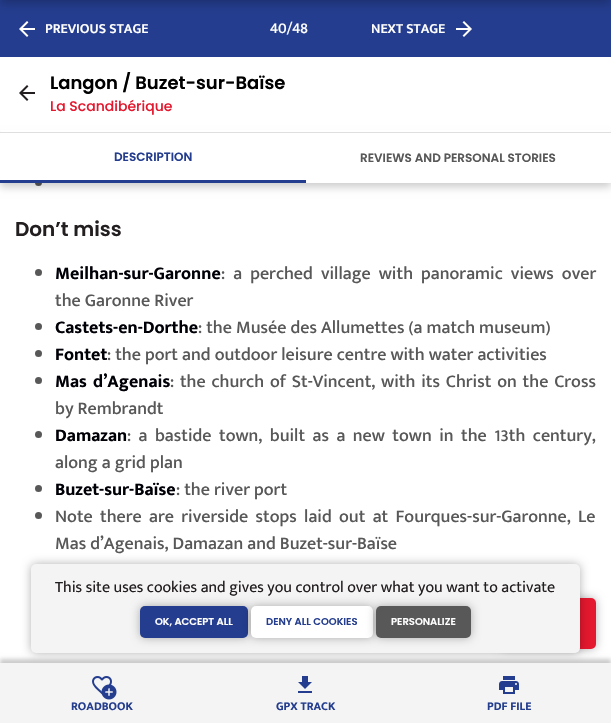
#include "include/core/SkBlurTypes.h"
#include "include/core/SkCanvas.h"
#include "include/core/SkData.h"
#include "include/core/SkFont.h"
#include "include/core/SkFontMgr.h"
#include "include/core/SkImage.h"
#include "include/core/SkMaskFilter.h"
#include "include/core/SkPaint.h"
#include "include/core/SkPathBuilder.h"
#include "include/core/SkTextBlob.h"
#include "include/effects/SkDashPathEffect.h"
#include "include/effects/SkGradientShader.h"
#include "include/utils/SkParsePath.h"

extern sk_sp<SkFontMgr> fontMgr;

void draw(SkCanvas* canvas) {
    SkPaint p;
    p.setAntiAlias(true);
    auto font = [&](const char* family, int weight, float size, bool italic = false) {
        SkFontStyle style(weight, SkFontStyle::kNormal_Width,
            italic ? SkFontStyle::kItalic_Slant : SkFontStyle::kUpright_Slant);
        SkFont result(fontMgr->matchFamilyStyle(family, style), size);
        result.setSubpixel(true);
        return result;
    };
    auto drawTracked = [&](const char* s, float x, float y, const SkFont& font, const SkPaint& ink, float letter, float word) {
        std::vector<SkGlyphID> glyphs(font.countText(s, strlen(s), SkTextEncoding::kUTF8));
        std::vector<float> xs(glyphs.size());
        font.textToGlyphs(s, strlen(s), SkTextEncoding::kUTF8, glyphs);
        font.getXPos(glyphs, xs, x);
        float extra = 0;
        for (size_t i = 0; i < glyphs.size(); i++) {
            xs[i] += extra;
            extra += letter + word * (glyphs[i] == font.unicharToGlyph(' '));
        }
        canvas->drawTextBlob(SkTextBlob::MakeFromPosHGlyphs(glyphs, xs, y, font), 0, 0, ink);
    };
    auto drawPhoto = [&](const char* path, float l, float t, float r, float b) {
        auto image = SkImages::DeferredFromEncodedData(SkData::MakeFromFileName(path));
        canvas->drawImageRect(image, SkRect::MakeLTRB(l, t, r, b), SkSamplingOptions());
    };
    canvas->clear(0xFFFFFFFF);
    p.setColor(0xFF243D8E);
    canvas->drawRect(SkRect::MakeLTRB(0, 0, 611, 57), p);
    p.setColor(0x33000000);
    p.setMaskFilter(SkMaskFilter::MakeBlur(kNormal_SkBlurStyle, 4));
    canvas->drawRect(SkRect::MakeLTRB(0, -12, 611, 4), p);
    p.setMaskFilter(nullptr);
    drawPhoto("media/1.png", 19, 21, 35, 37);
    auto font1 = font("Mukta Mahee", 600, 14);
    p.setColor(0xFFFFFFFF);
    canvas->drawString("PREVIOUS STAGE", 45, 33, font1, p);
    auto font2 = font("Mukta Mahee", 500, 16);
    canvas->drawString("40/48", 270, 33, font2, p);
    canvas->drawString("NEXT STAGE", 371, 33, font1, p);
    drawPhoto("media/2.png", 456, 21, 472, 37);
    p.setColor(0xFF585858);
    canvas->drawCircle(38.5f, 182.5f, 3.5f, p);
    p.setColor(0x33000000);
    p.setMaskFilter(SkMaskFilter::MakeBlur(kNormal_SkBlurStyle, 4));
    canvas->drawRect(SkRect::MakeLTRB(0, 137, 611, 187), p);
    p.setMaskFilter(nullptr);
    p.setColor(0xFFFFFFFF);
    canvas->drawRect(SkRect::MakeLTRB(1, 130, 610, 132), p);
    p.setColor(0xFFDFDFDF);
    canvas->drawRect(SkRect::MakeLTRB(0, 132, 611, 133), p);
    drawPhoto("media/3.png", 19, 85, 35, 101);
    auto font3 = font("Poppins", 600, 18);
    p.setColor(0xFF000000);
    canvas->drawString("Langon / Buzet-sur-Baïse", 50, 89, font3, p);
    auto font4 = font("Poppins", 500, 14);
    p.setColor(0xFFE4182E);
    canvas->drawString("La Scandibérique", 50, 111, font4, p);
    p.setColor(0xFFFFFFFF);
    canvas->drawRect(SkRect::MakeLTRB(0, 133, 611, 183), p);
    p.setColor(0xFF243D8E);
    canvas->drawRect(SkRect::MakeLTRB(0, 180, 306, 183), p);
    auto font5 = font("Poppins", 600, 12);
    canvas->drawString("DESCRIPTION", 114, 161, font5, p);
    p.setColor(0xFF585858);
    canvas->drawString("REVIEWS AND PERSONAL STORIES", 360, 162, font5, p);
    auto font6 = font("Poppins", 600, 20);
    p.setColor(0xFF231F20);
    canvas->drawString("Don’t miss", 15, 236, font6, p);
    p.setColor(0xFF585858);
    canvas->drawCircle(38.5f, 272.5f, 3.5f, p);
    auto font7 = font("Mukta Mahee", 700, 18);
    p.setColor(0xFF000007);
    canvas->drawString("Meilhan-sur-Garonne", 55, 279, font7, p);
    auto font8 = font("Mukta Mahee", 500, 18);
    p.setColor(0xFF585858);
    drawTracked(": a perched village with panoramic views over", 221, 279, font8, p, 0, 4);
    canvas->drawString("the Garonne River", 55, 306, font8, p);
    canvas->drawCircle(38.5f, 326.5f, 3.5f, p);
    p.setColor(0xFF000007);
    canvas->drawString("Castets-en-Dorthe", 55, 333, font7, p);
    p.setColor(0xFF585858);
    canvas->drawString(": the Musée des Allumettes (a match museum)", 198, 333, font8, p);
    canvas->drawCircle(38.5f, 353.5f, 3.5f, p);
    p.setColor(0xFF000007);
    canvas->drawString("Fontet", 55, 360, font7, p);
    p.setColor(0xFF585858);
    canvas->drawString(": the port and outdoor leisure centre with water activities", 107, 360, font8, p);
    canvas->drawCircle(38.5f, 380.5f, 3.5f, p);
    p.setColor(0xFF000007);
    drawTracked("Mas d’Agenais", 55, 387, font7, p, 0, 2);
    p.setColor(0xFF585858);
    drawTracked(": the church of St-Vincent, with its Christ on the Cross", 170, 387, font8, p, 0, 1.75f);
    canvas->drawString("by Rembrandt", 55, 414, font8, p);
    canvas->drawCircle(38.5f, 434.5f, 3.5f, p);
    p.setColor(0xFF000007);
    canvas->drawString("Damazan", 55, 441, font7, p);
    p.setColor(0xFF585858);
    drawTracked(": a bastide town, built as a new town in the 13th century,", 127, 441, font8, p, 0, 3.4f);
    canvas->drawString("along a grid plan", 55, 468, font8, p);
    canvas->drawCircle(38.5f, 488.5f, 3.5f, p);
    p.setColor(0xFF000007);
    canvas->drawString("Buzet-sur-Baïse", 55, 495, font7, p);
    p.setColor(0xFF585858);
    canvas->drawString(": the river port", 176, 495, font8, p);
    canvas->drawCircle(38.5f, 515.5f, 3.5f, p);
    drawTracked("Note there are riverside stops laid out at Fourques-sur-Garonne, Le", 55, 522, font8, p, 0, 3.25f);
    canvas->drawString("Mas d’Agenais, Damazan and Buzet-sur-Baïse", 55, 549, font8, p);
    p.setColor(0x33000000);
    p.setMaskFilter(SkMaskFilter::MakeBlur(kNormal_SkBlurStyle, 2));
    canvas->drawRect(SkRect::MakeLTRB(0, 659, 611, 719), p);
    p.setMaskFilter(nullptr);
    p.setColor(0xFFF4F4F4);
    canvas->drawRect(SkRect::MakeLTRB(0, 663, 611, 723), p);
    p.setColor(0x4D000000);
    p.setMaskFilter(SkMaskFilter::MakeBlur(kNormal_SkBlurStyle, 5));
    canvas->drawRoundRect(SkRect::MakeLTRB(500, 598, 596, 649), 5, 5, p);
    p.setMaskFilter(nullptr);
    p.setColor(0xFFE4182E);
    canvas->drawRoundRect(SkRect::MakeLTRB(500, 598, 596, 649), 5, 5, p);
    drawPhoto("media/4.png", 92, 676, 112, 695);
    drawPhoto("media/5.png", 101, 684, 117, 700);
    auto font9 = font("Mukta Mahee", 700, 12);
    p.setColor(0xFF243D8E);
    canvas->drawString("ROADBOOK", 71, 710, font9, p);
    drawPhoto("media/6.png", 298, 676, 312, 693);
    canvas->drawString("GPX TRACK", 276, 710, font9, p);
    drawPhoto("media/7.png", 499, 676, 519, 694);
    canvas->drawString("PDF FILE", 487, 710, font9, p);
    p.setColor(0x4D000000);
    p.setMaskFilter(SkMaskFilter::MakeBlur(kNormal_SkBlurStyle, 5));
    canvas->drawRoundRect(SkRect::MakeLTRB(31, 564, 580, 653), 5, 5, p);
    p.setMaskFilter(nullptr);
    p.setColor(0xFFF4F4F4);
    canvas->drawRoundRect(SkRect::MakeLTRB(31, 564, 580, 653), 5, 5, p);
    auto font10 = font("Mukta Mahee", 400, 16);
    p.setColor(0xFF231F20);
    canvas->drawString("This site uses cookies and gives you control over what you want to activate", 55, 592, font10, p);
    p.setColor(0x4D000000);
    p.setMaskFilter(SkMaskFilter::MakeBlur(kNormal_SkBlurStyle, 5));
    canvas->drawRoundRect(SkRect::MakeLTRB(140, 606, 248, 638), 5, 5, p);
    p.setMaskFilter(nullptr);
    p.setColor(0xFF243D8E);
    canvas->drawRoundRect(SkRect::MakeLTRB(140, 606, 248, 638), 5, 5, p);
    auto font11 = font("Poppins", 600, 10);
    p.setColor(0xFFFFFFFF);
    canvas->drawString("OK, ACCEPT ALL", 155, 625, font11, p);
    p.setColor(0x4D000000);
    p.setMaskFilter(SkMaskFilter::MakeBlur(kNormal_SkBlurStyle, 5));
    canvas->drawRoundRect(SkRect::MakeLTRB(251, 606, 373, 638), 5, 5, p);
    p.setMaskFilter(nullptr);
    p.setColor(0xFFFFFFFF);
    canvas->drawRoundRect(SkRect::MakeLTRB(251, 606, 373, 638), 5, 5, p);
    p.setColor(0xFF243D8E);
    canvas->drawString("DENY ALL COOKIES", 266, 625, font11, p);
    p.setColor(0x4D000000);
    p.setMaskFilter(SkMaskFilter::MakeBlur(kNormal_SkBlurStyle, 5));
    canvas->drawRoundRect(SkRect::MakeLTRB(376, 606, 471, 638), 5, 5, p);
    p.setMaskFilter(nullptr);
    p.setColor(0xFF585858);
    canvas->drawRoundRect(SkRect::MakeLTRB(376, 606, 471, 638), 5, 5, p);
    p.setColor(0xFFFFFFFF);
    canvas->drawString("PERSONALIZE", 391, 625, font11, p);
}
